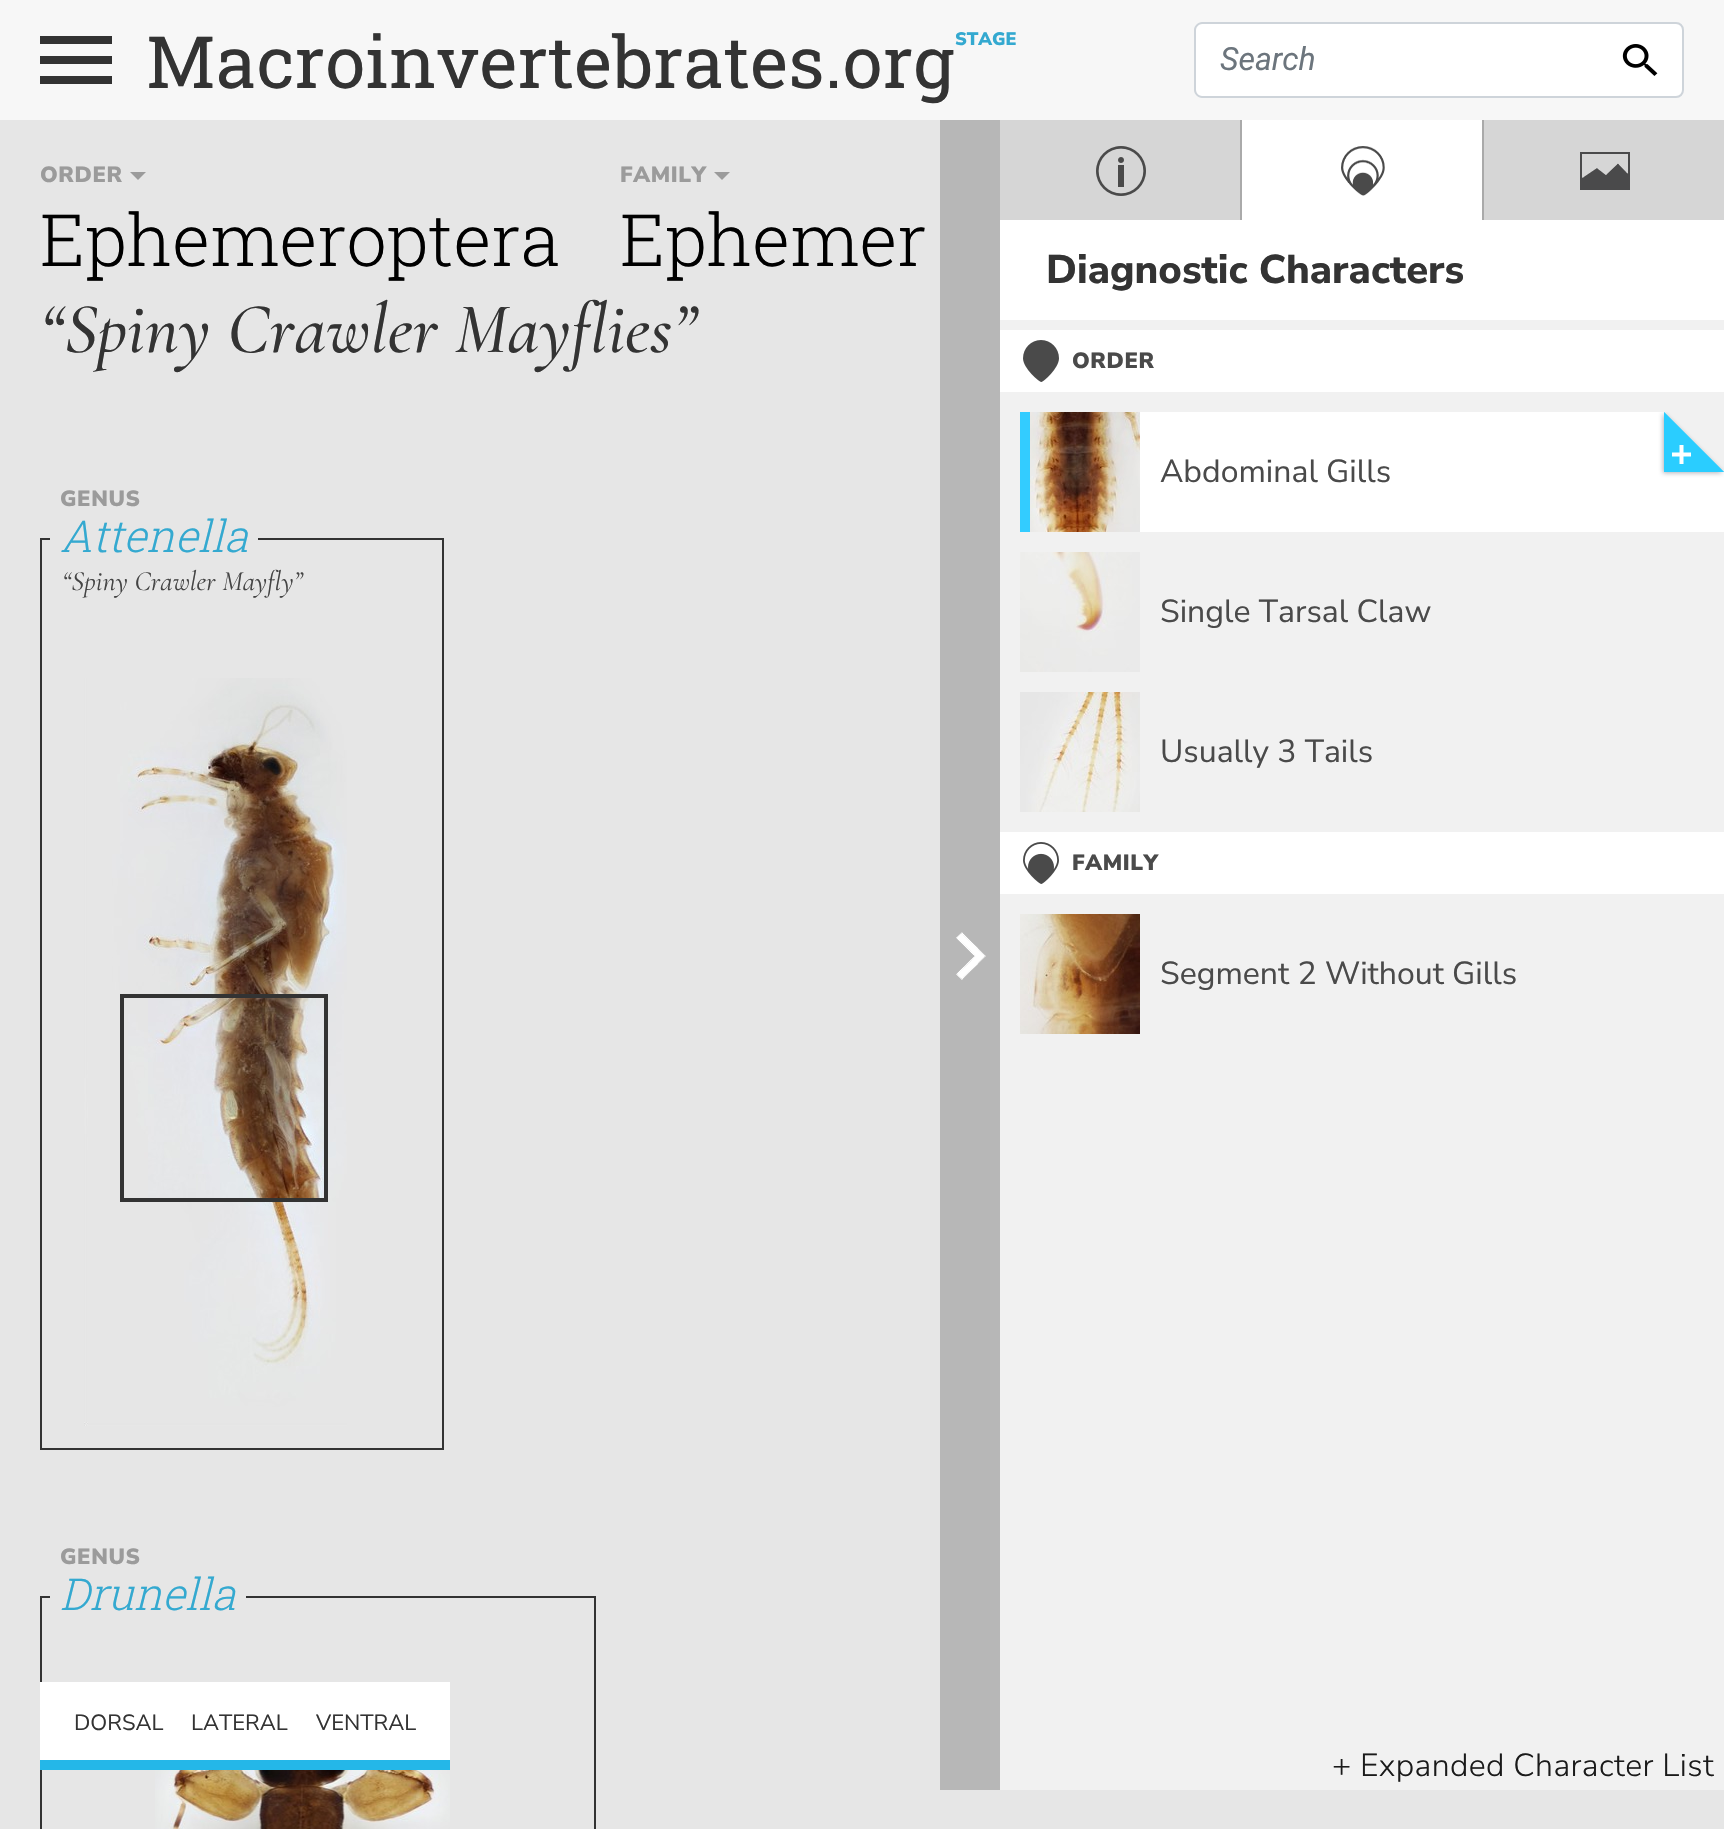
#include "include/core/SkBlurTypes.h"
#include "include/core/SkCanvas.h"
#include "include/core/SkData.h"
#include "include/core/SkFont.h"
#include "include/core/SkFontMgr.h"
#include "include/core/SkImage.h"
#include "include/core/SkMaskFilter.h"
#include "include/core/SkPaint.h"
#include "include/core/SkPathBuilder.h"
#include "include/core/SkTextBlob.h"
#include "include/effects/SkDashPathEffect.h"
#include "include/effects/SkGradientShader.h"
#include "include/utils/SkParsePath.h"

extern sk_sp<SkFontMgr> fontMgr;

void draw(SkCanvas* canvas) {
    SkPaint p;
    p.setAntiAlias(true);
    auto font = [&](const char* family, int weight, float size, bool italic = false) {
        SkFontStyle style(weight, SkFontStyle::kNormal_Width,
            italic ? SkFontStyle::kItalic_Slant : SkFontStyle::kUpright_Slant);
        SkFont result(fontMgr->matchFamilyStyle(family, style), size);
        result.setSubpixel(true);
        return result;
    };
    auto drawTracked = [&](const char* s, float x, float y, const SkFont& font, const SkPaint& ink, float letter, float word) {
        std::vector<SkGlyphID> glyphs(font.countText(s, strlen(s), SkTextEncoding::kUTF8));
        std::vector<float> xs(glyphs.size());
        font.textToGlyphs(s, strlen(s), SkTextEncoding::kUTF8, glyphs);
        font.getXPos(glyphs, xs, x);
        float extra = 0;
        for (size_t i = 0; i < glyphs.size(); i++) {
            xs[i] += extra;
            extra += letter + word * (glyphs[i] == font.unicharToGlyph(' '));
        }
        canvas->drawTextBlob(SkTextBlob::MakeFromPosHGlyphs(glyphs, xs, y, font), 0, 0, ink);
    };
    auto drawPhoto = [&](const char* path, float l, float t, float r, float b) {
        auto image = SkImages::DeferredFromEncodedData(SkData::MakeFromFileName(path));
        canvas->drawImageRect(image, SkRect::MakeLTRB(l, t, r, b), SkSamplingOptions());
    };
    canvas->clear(0xFFE6E6E6);
    p.setColor(0xFFF7F7F7);
    canvas->drawRect(SkRect::MakeLTRB(0, 0, 1724, 120), p);
    drawPhoto("media/1.png", 40, 36, 112, 84);
    auto font1 = font("Roboto Slab", 400, 72);
    p.setColor(0xFF333333);
    drawTracked("Macroinvertebrates.org", 146, 88, font1, p, 0.6f, 0);
    auto font2 = font("Nunito Sans", 900, 18);
    p.setColor(0xFF34A9D0);
    canvas->drawString("STAGE", 955, 45, font2, p);
    p.setColor(0xFFFFFFFF);
    canvas->drawPath(SkPathBuilder().moveTo(1597, 23).lineTo(1676, 23).cubicTo(1680, 23, 1683, 26, 1683, 30).lineTo(1683, 90).cubicTo(1683, 94, 1680, 97, 1676, 97).lineTo(1597, 97).close().detach(), p);
    p.setStyle(SkPaint::kStroke_Style);
    p.setStrokeWidth(2);
    p.setColor(0xFFCED4DA);
    canvas->drawPath(SkPathBuilder().moveTo(1597, 23).lineTo(1676, 23).cubicTo(1680, 23, 1683, 26, 1683, 30).lineTo(1683, 90).cubicTo(1683, 94, 1680, 97, 1676, 97).lineTo(1597, 97).close().detach(), p);
    p.setStyle(SkPaint::kFill_Style);
    p.setColor(0xFFFFFFFF);
    canvas->drawPath(SkPathBuilder().moveTo(1202, 24).lineTo(1598, 24).lineTo(1598, 96).lineTo(1202, 96).cubicTo(1198.5f, 96, 1196, 93.5f, 1196, 90).lineTo(1196, 30).cubicTo(1196, 26.5f, 1198.5f, 24, 1202, 24).close().detach(), p);
    p.setColor(0xFFCED4DA);
    canvas->drawPath(SkPathBuilder(SkPathFillType::kEvenOdd).moveTo(1202, 22).lineTo(1598, 22).lineTo(1598, 98).lineTo(1202, 98).cubicTo(1198, 98, 1194, 94, 1194, 90).lineTo(1194, 30).cubicTo(1194, 26, 1198, 22, 1202, 22).close().moveTo(1202, 24).lineTo(1598, 24).lineTo(1598, 96).lineTo(1202, 96).cubicTo(1199, 96, 1196, 93, 1196, 90).lineTo(1196, 30).cubicTo(1196, 27, 1199, 24, 1202, 24).close().detach(), p);
    auto font3 = font("Roboto", 400, 32, true);
    p.setColor(0xFF6C757D);
    canvas->drawString("Search", 1220, 70, font3, p);
    drawPhoto("media/2.png", 1622, 44, 1658, 76);
    auto font4 = font("Nunito Sans", 900, 22);
    p.setColor(0xFF9B9B9B);
    drawTracked("ORDER", 40, 182, font4, p, 0.6f, 0);
    drawPhoto("media/3.png", 130, 172, 146, 180);
    auto font5 = font("Roboto Slab", 300, 72);
    p.setColor(0xFF000000);
    canvas->drawString("Ephemeroptera", 40, 266, font5, p);
    p.setColor(0xFF9B9B9B);
    drawTracked("FAMILY", 620, 182, font4, p, 0.6f, 0);
    drawPhoto("media/3.png", 714, 172, 730, 180);
    p.setColor(0xFF000000);
    canvas->drawString("Ephemer", 620, 266, font5, p);
    auto font6 = font("Cormorant Garamond", 500, 72, true);
    p.setColor(0xFF333333);
    canvas->drawString("“Spiny Crawler Mayflies”", 40, 352, font6, p);
    p.setColor(0xFFB7B7B7);
    canvas->drawRect(SkRect::MakeLTRB(940, 120, 1000, 1790), p);
    drawPhoto("media/4.png", 956, 932, 986, 980);
    p.setColor(0xFFD6D6D6);
    canvas->drawRect(SkRect::MakeLTRB(1000, 120, 1240, 220), p);
    drawPhoto("media/5.png", 1096, 146, 1146, 196);
    p.setColor(0xFFAAAAAA);
    canvas->drawRect(SkRect::MakeLTRB(1240, 120, 1242, 220), p);
    p.setColor(0xFFFFFFFF);
    canvas->drawRect(SkRect::MakeLTRB(1242, 120, 1482, 220), p);
    drawPhoto("media/6.png", 1341, 146, 1385, 196);
    p.setColor(0xFFAAAAAA);
    canvas->drawRect(SkRect::MakeLTRB(1482, 120, 1484, 220), p);
    p.setColor(0xFFD6D6D6);
    canvas->drawRect(SkRect::MakeLTRB(1484, 120, 1724, 220), p);
    drawPhoto("media/7.png", 1580, 152, 1630, 190);
    p.setColor(0xFFFFFFFF);
    canvas->drawRect(SkRect::MakeLTRB(1000, 220, 1724, 320), p);
    auto font7 = font("Nunito Sans", 800, 40);
    p.setColor(0xFF333333);
    canvas->drawString("Diagnostic Characters", 1046, 283, font7, p);
    p.setColor(0xFFF1F1F1);
    canvas->drawRect(SkRect::MakeLTRB(1000, 320, 1724, 1790), p);
    p.setColor(0xFFFFFFFF);
    canvas->drawRect(SkRect::MakeLTRB(1000, 330, 1724, 392), p);
    drawPhoto("media/8.png", 1023, 340, 1059, 382);
    p.setColor(0xFF4A4A4A);
    drawTracked("ORDER", 1072, 368, font4, p, 0.6f, 0);
    p.setColor(0xFFFFFFFF);
    canvas->drawRect(SkRect::MakeLTRB(1140, 412, 1658, 532), p);
    p.setColor(0xFF33CCFF);
    canvas->drawRect(SkRect::MakeLTRB(1020, 412, 1030, 532), p);
    drawPhoto("media/9.png", 1030, 412, 1140, 532);
    auto font8 = font("Nunito Sans", 400, 32);
    p.setColor(0xFF4A4A4A);
    canvas->drawString("Abdominal Gills", 1160, 482, font8, p);
    drawPhoto("media/10.png", 1658, 412, 1724, 478);
    p.setColor(0xFFFFFFFF);
    canvas->drawRect(SkRect::MakeLTRB(1658, 478, 1724, 532), p);
    drawPhoto("media/11.png", 1020, 552, 1140, 672);
    p.setColor(0xFF4A4A4A);
    canvas->drawString("Single Tarsal Claw", 1160, 622, font8, p);
    drawPhoto("media/12.png", 1020, 692, 1140, 812);
    canvas->drawString("Usually 3 Tails", 1160, 762, font8, p);
    p.setColor(0xFFFFFFFF);
    canvas->drawRect(SkRect::MakeLTRB(1000, 832, 1724, 894), p);
    drawPhoto("media/13.png", 1023, 842, 1059, 884);
    p.setColor(0xFF4A4A4A);
    drawTracked("FAMILY", 1072, 870, font4, p, 0.6f, 0);
    drawPhoto("media/14.png", 1020, 914, 1140, 1034);
    canvas->drawString("Segment 2 Without Gills", 1160, 984, font8, p);
    auto font9 = font("Nunito Sans", 300, 32);
    p.setColor(0xFF1A1A1A);
    drawTracked("+ Expanded Character List", 1332, 1776, font9, p, 0.4f, 0);
    p.setStyle(SkPaint::kStroke_Style);
    p.setColor(0xFF333333);
    canvas->drawRect(SkRect::MakeLTRB(41, 539, 443, 1449), p);
    p.setStyle(SkPaint::kFill_Style);
    p.setColor(0xFFE6E6E6);
    canvas->drawRect(SkRect::MakeLTRB(50, 538, 258, 540), p);
    p.setColor(0xFF9B9B9B);
    drawTracked("GENUS", 60, 506, font4, p, 0.6f, 0);
    auto font10 = font("Roboto Slab", 300, 44, true);
    p.setColor(0xFF34A9D0);
    canvas->drawString("Attenella", 60, 552, font10, p);
    auto font11 = font("Cormorant Garamond", 400, 28, true);
    p.setColor(0xFF444444);
    canvas->drawString("“Spiny Crawler Mayfly”", 62, 590, font11, p);
    drawPhoto("media/15.png", 84, 678, 347, 1426);
    p.setStyle(SkPaint::kStroke_Style);
    p.setStrokeWidth(4);
    p.setColor(0xFF333333);
    canvas->drawRect(SkRect::MakeLTRB(122, 996, 326, 1200), p);
    drawPhoto("media/16.png", 148, 998, 324, 1198);
    p.setStrokeWidth(2);
    canvas->drawRect(SkRect::MakeLTRB(41, 1597, 595, 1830), p);
    p.setStyle(SkPaint::kFill_Style);
    p.setColor(0xFFE6E6E6);
    canvas->drawRect(SkRect::MakeLTRB(50, 1596, 246, 1598), p);
    p.setColor(0xFF9B9B9B);
    drawTracked("GENUS", 60, 1564, font4, p, 0.6f, 0);
    p.setColor(0xFF34A9D0);
    canvas->drawString("Drunella", 60, 1610, font10, p);
    drawPhoto("media/17.png", 155, 1770, 450, 1829);
    p.setColor(0xFFFFFFFF);
    canvas->drawRect(SkRect::MakeLTRB(40, 1682, 450, 1760), p);
    auto font12 = font("Nunito Sans", 400, 22);
    p.setColor(0xFF333333);
    {
        const struct { const char* s; float x, y; } items[] = {
            {"DORSAL", 74, 1730},
            {"LATERAL", 191, 1730},
            {"VENTRAL", 316, 1730},
        };
        for (auto [s, x, y] : items) {
            canvas->drawString(s, x, y, font12, p);
        }
    }
    p.setColor(0xFF24B7E8);
    canvas->drawRect(SkRect::MakeLTRB(40, 1760, 450, 1770), p);
}
